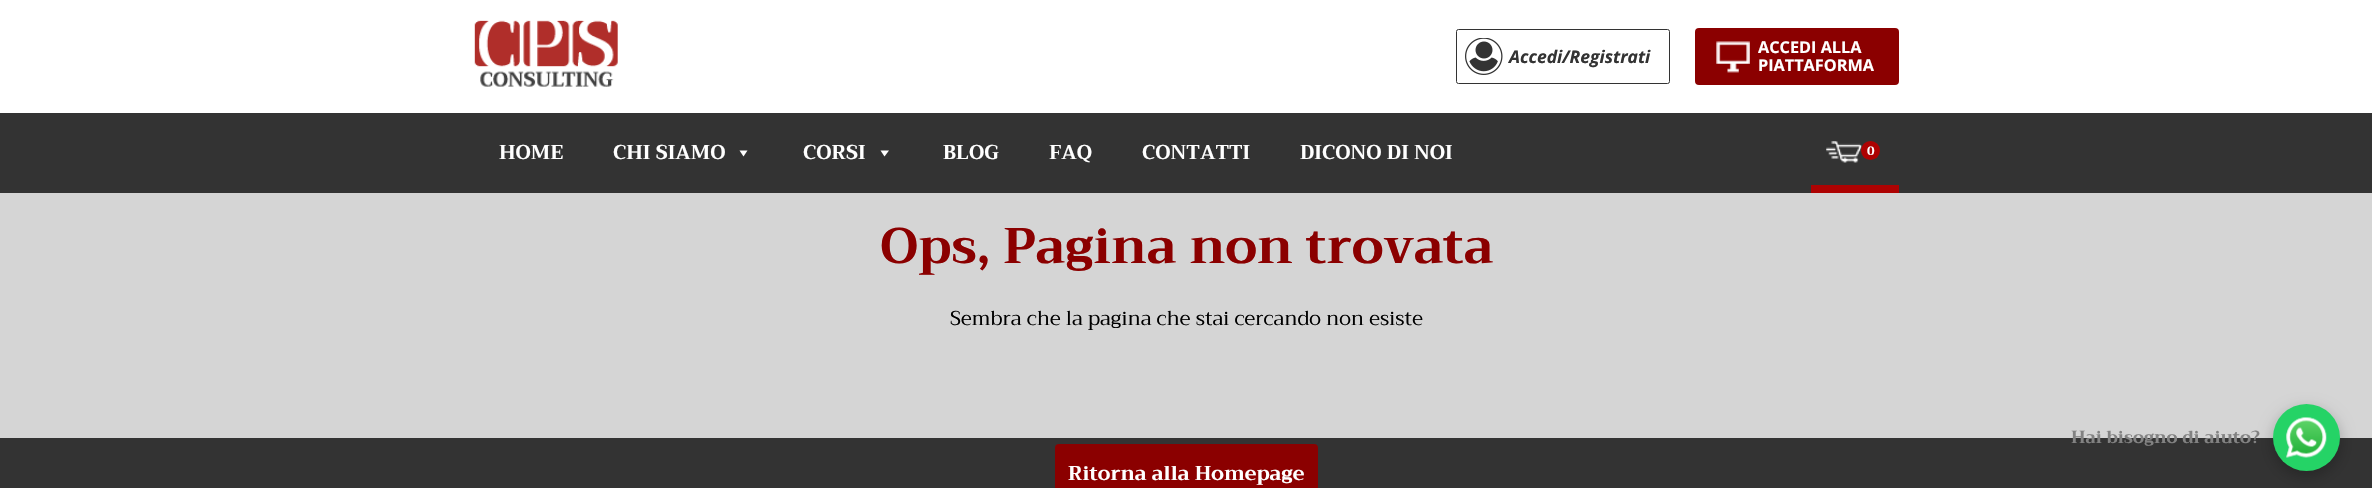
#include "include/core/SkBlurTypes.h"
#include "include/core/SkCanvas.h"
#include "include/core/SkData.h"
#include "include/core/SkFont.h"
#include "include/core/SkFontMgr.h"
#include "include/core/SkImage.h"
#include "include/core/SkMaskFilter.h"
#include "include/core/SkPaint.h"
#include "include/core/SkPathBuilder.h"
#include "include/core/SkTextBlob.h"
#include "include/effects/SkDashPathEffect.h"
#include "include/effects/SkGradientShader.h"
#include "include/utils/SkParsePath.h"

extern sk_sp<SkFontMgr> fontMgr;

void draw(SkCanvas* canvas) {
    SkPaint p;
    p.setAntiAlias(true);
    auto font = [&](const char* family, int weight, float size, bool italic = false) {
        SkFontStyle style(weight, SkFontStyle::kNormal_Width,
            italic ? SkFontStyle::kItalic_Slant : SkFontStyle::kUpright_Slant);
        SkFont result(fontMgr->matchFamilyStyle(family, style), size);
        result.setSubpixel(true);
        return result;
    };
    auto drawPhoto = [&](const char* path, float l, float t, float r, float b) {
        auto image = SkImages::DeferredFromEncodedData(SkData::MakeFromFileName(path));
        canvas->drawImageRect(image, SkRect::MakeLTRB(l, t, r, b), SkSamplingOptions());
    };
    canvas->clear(0xFFFFFFFF);
    drawPhoto("media/1.png", 474, 20, 618, 87);
    p.setStyle(SkPaint::kStroke_Style);
    p.setStrokeWidth(1);
    p.setColor(0xFF333333);
    canvas->drawRoundRect(SkRect::MakeLTRB(1456.5f, 29.5f, 1669.5f, 83.5f), 2, 2, p);
    drawPhoto("media/2.png", 1465, 38, 1503, 75);
    auto font1 = font("Open Sans", 700, 17.5f, true);
    p.setStyle(SkPaint::kFill_Style);
    canvas->drawString("Accedi/Registrati", 1509, 63, font1, p);
    p.setColor(0xFF8B0000);
    canvas->drawRoundRect(SkRect::MakeLTRB(1695, 28, 1899, 85), 4, 4, p);
    drawPhoto("media/3.png", 1716, 41, 1750, 73);
    auto font2 = font("Open Sans", 700, 16.25f);
    p.setColor(0xFFFFFFFF);
    canvas->drawString("ACCEDI ALLA", 1758, 53, font2, p);
    canvas->drawString("PIATTAFORMA", 1758, 71, font2, p);
    p.setColor(0xFF333333);
    canvas->drawRect(SkRect::MakeLTRB(0, 113, 2372, 193), p);
    auto font3 = font("Trirong", 700, 20);
    p.setColor(0xFFFFFFFF);
    canvas->drawString("HOME", 499, 159, font3, p);
    canvas->drawString("CHI SIAMO", 613, 159, font3, p);
    canvas->drawPath(SkPathBuilder().moveTo(747.5f, 150.5f).lineTo(743.5f, 156.5f).lineTo(739.5f, 150.5f).close().detach(), p);
    canvas->drawString("CORSI", 803, 159, font3, p);
    canvas->drawPath(SkPathBuilder().moveTo(889, 150.5f).lineTo(884.5f, 156.5f).lineTo(880.5f, 150.5f).close().detach(), p);
    {
        const struct { const char* s; float x, y; } items[] = {
            {"BLOG", 943, 159},
            {"FAQ", 1049, 159},
            {"CONTATTI", 1142, 159},
            {"DICONO DI NOI", 1300, 159},
        };
        for (auto [s, x, y] : items) {
            canvas->drawString(s, x, y, font3, p);
        }
    }
    p.setColor(0xFFAD0202);
    canvas->drawRect(SkRect::MakeLTRB(1811, 185, 1899, 193), p);
    drawPhoto("media/4.png", 1826, 141, 1862, 163);
    canvas->drawCircle(1870.5f, 150.5f, 9.5f, p);
    auto font4 = font("Trirong", 700, 12);
    p.setColor(0xFFFFFFFF);
    canvas->drawString("0", 1867, 155, font4, p);
    p.setColor(0xFFD5D5D5);
    canvas->drawRect(SkRect::MakeLTRB(0, 193, 2372, 438), p);
    auto font5 = font("Trirong", 700, 50);
    p.setColor(0xFF8B0000);
    canvas->drawString("Ops, Pagina non trovata", 880, 263, font5, p);
    auto font6 = font("Trirong", 400, 20);
    p.setColor(0xFF000000);
    canvas->drawString("Sembra che la pagina che stai cercando non esiste", 950, 325, font6, p);
    p.setColor(0xFF333333);
    canvas->drawRect(SkRect::MakeLTRB(0, 438, 2372, 488), p);
    p.setColor(0xFF8B0000);
    canvas->drawRoundRect(SkRect::MakeLTRB(1055, 444, 1318, 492), 4, 4, p);
    p.setColor(0xFFFFFFFF);
    canvas->drawString("Ritorna alla Homepage", 1068, 480, font3, p);
    p.setColor(0x40000000);
    p.setMaskFilter(SkMaskFilter::MakeBlur(kNormal_SkBlurStyle, 7.5f));
    canvas->drawRoundRect(SkRect::MakeLTRB(2273, 409, 2340, 476), 33.5f, 33.5f, p);
    p.setMaskFilter(nullptr);
    auto font7 = font("Trirong", 700, 17.5f);
    p.setColor(0xFF828282);
    canvas->drawString("Hai bisogno di aiuto?", 2071, 443, font7, p);
    p.setColor(0xFF25D366);
    canvas->drawCircle(2306.5f, 437.5f, 33.5f, p);
    drawPhoto("media/5.png", 2286, 417, 2327, 458);
}
